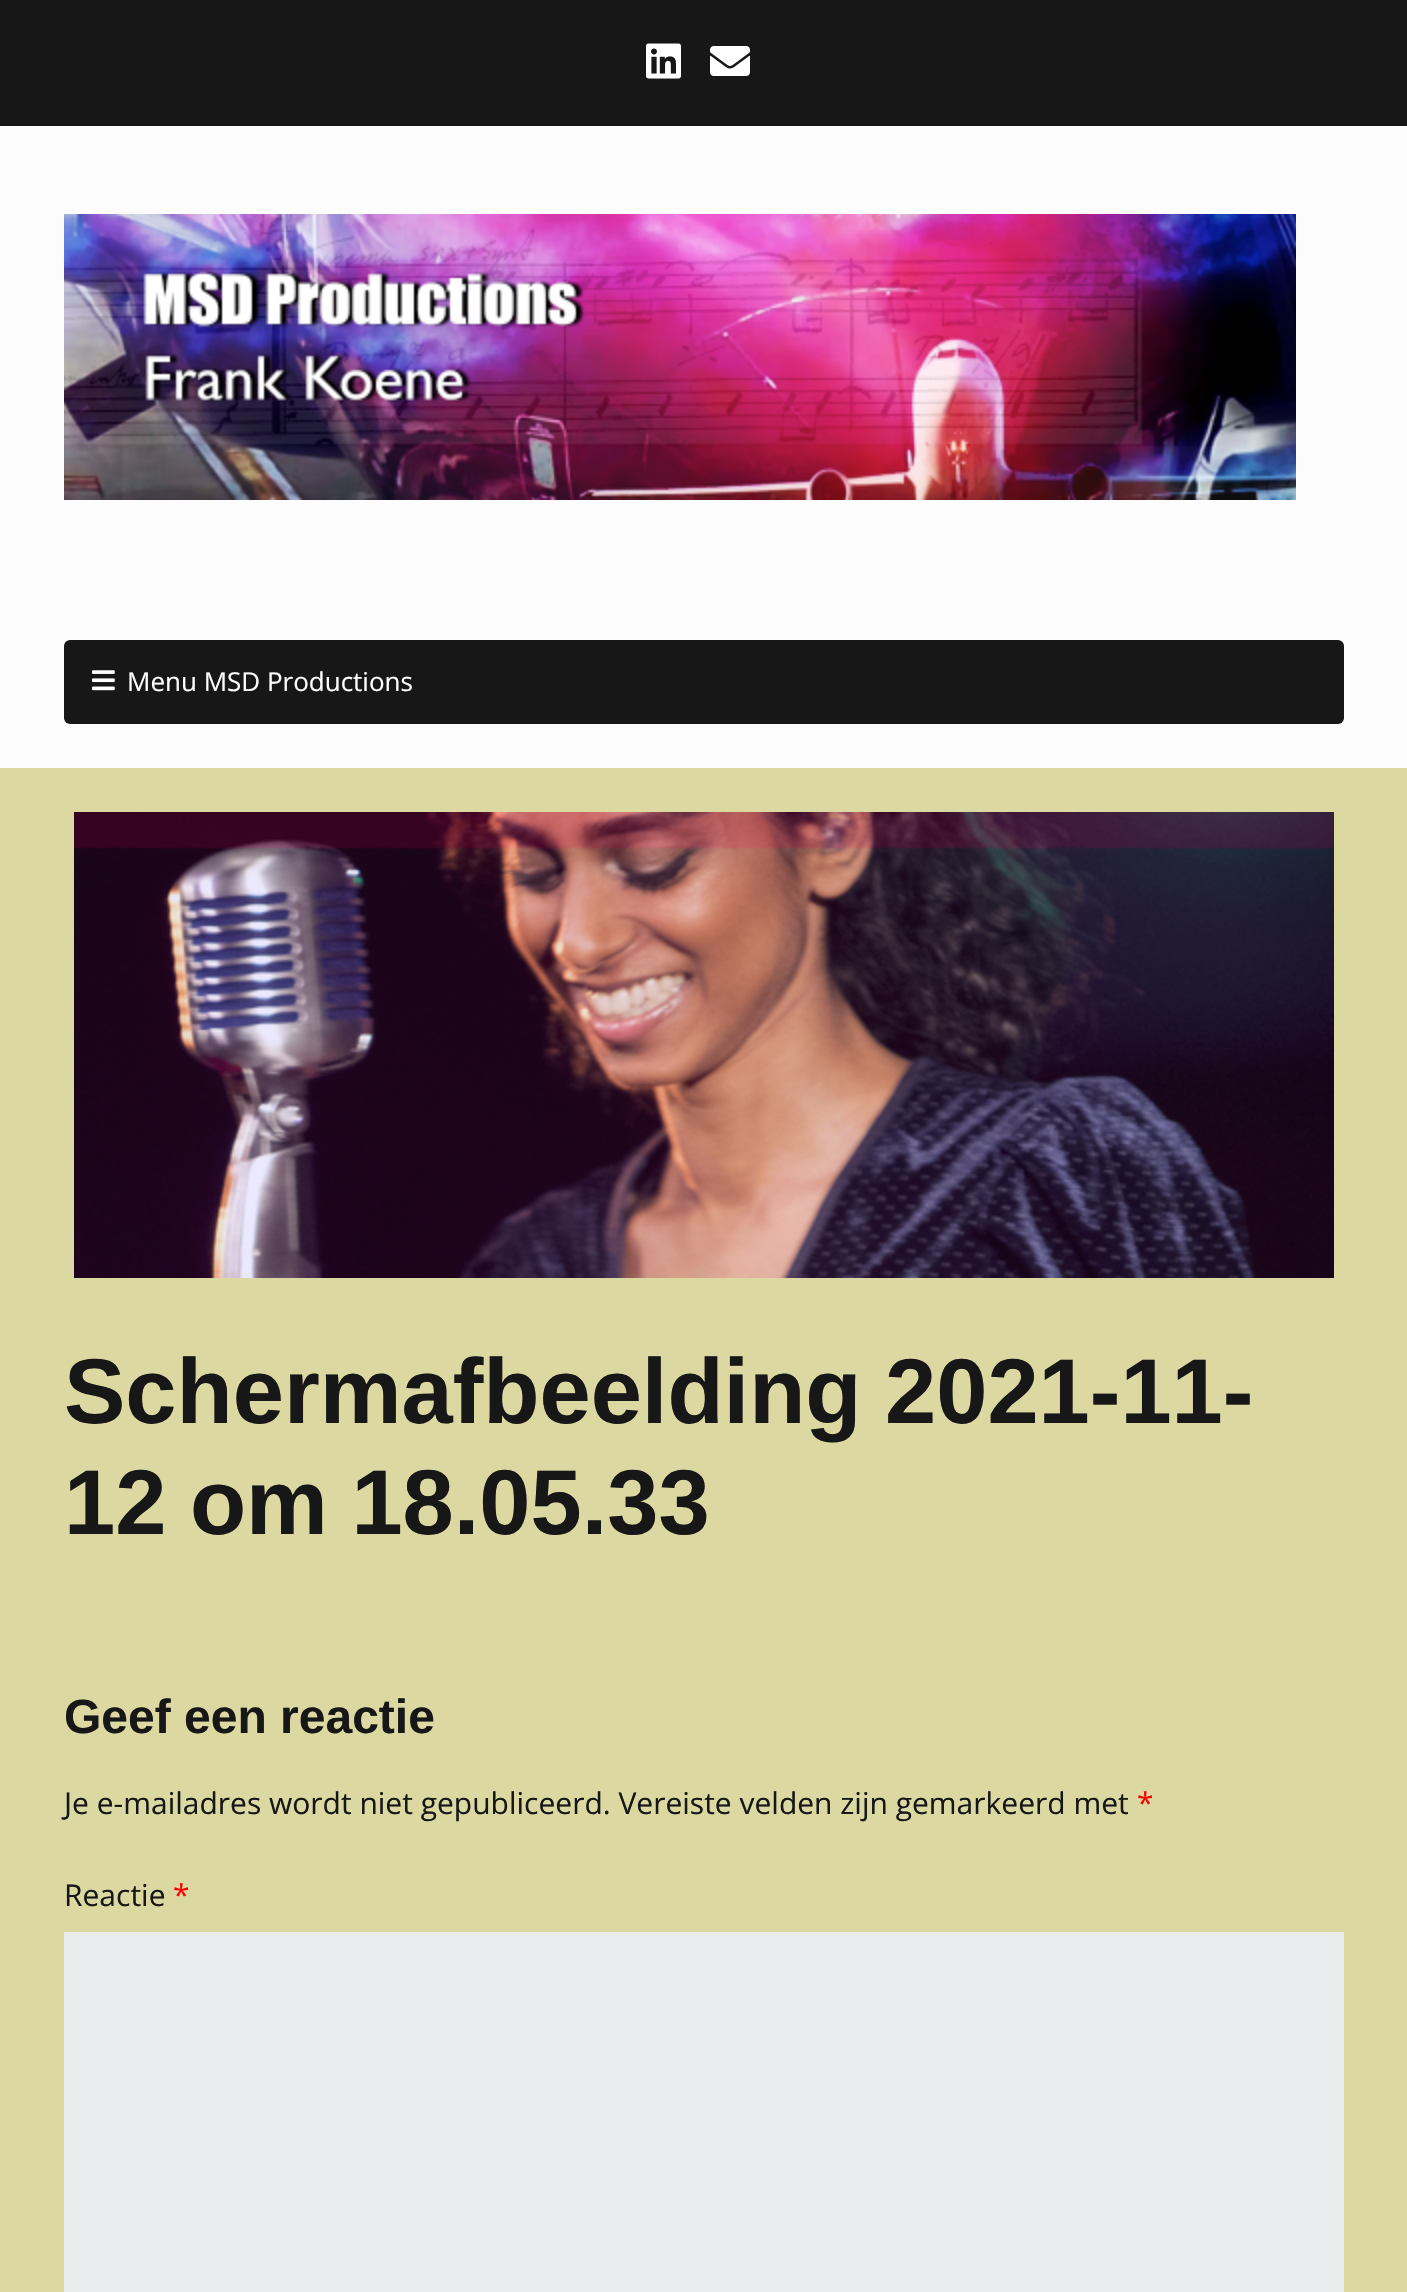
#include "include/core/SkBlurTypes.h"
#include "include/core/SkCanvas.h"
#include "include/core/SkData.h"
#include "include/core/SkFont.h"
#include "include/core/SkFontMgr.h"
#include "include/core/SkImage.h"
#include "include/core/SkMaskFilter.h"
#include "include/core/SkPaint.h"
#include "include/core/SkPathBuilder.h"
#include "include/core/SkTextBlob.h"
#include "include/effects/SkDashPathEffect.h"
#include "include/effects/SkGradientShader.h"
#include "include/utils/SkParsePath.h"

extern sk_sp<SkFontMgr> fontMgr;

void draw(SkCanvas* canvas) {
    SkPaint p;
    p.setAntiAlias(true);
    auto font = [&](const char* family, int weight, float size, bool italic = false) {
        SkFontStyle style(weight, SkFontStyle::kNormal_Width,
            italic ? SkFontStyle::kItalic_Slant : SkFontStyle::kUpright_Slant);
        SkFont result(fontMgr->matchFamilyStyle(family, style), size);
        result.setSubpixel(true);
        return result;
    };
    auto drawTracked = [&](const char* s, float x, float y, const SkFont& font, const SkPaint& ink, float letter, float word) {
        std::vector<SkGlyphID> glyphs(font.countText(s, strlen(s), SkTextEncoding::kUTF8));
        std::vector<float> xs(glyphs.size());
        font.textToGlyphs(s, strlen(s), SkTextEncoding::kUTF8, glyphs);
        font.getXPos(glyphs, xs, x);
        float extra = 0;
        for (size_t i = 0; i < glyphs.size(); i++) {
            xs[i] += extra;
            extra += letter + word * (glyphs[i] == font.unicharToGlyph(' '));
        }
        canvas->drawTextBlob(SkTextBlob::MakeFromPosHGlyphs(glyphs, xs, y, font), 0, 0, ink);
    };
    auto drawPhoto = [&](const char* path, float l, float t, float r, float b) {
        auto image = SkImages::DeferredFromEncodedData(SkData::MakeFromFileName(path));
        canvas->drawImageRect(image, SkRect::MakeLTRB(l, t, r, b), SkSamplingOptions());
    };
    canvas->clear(0xFF171717);
    drawPhoto("media/1.png", 646, 43, 681, 79);
    drawPhoto("media/2.png", 710, 46, 750, 76);
    p.setColor(0xFFFCFCFC);
    canvas->drawRect(SkRect::MakeLTRB(0, 126, 1407, 768), p);
    drawPhoto("media/3.png", 64, 214, 1296, 500);
    p.setColor(0xFF171717);
    canvas->drawRoundRect(SkRect::MakeLTRB(64, 640, 1344, 724), 6, 6, p);
    drawPhoto("media/4.png", 92, 670, 115, 691);
    auto font1 = font("Open Sans", 400, 26);
    p.setColor(0xFFFFFFFF);
    canvas->drawString("Menu MSD Productions", 127, 691, font1, p);
    p.setColor(0xFFDBD8A2);
    canvas->drawRect(SkRect::MakeLTRB(0, 768, 1407, 2292), p);
    drawPhoto("media/5.png", 74, 812, 1334, 1278);
    auto font2 = font("Liberation Sans", 700, 92);
    p.setColor(0xFF171717);
    drawTracked("Schermafbeelding 2021-11-", 64, 1423, font2, p, 0, -2);
    drawTracked("12 om 18.05.33", 64, 1534, font2, p, 0, -2);
    auto font3 = font("Liberation Sans", 700, 48);
    canvas->drawString("Geef een reactie", 64, 1733, font3, p);
    auto font4 = font("Open Sans", 400, 30);
    canvas->drawString("Je e-mailadres wordt niet gepubliceerd. Vereiste velden zijn gemarkeerd met", 64, 1814, font4, p);
    p.setColor(0xFFFC0000);
    canvas->drawString("*", 1137, 1814, font4, p);
    p.setColor(0xFF171717);
    canvas->drawString("Reactie", 64, 1906, font4, p);
    p.setColor(0xFFFC0000);
    canvas->drawString("*", 173, 1906, font4, p);
    p.setColor(0xFFEAECEE);
    canvas->drawRect(SkRect::MakeLTRB(64, 1932, 1344, 2292), p);
}
